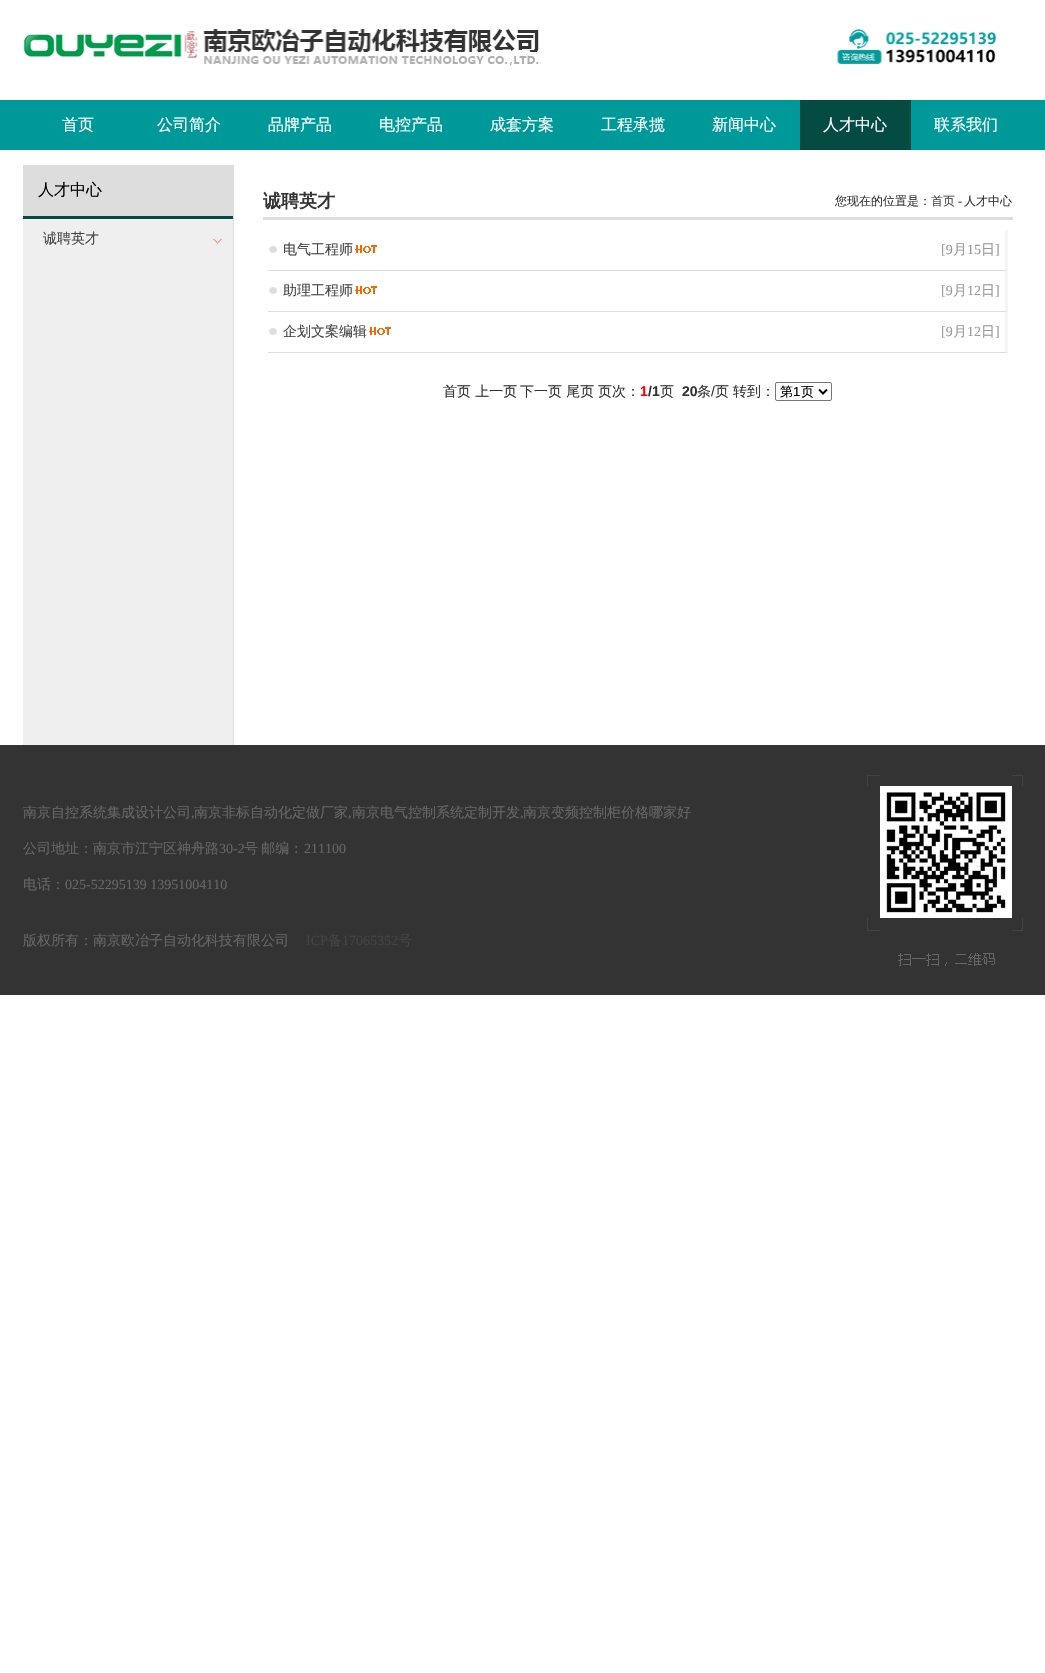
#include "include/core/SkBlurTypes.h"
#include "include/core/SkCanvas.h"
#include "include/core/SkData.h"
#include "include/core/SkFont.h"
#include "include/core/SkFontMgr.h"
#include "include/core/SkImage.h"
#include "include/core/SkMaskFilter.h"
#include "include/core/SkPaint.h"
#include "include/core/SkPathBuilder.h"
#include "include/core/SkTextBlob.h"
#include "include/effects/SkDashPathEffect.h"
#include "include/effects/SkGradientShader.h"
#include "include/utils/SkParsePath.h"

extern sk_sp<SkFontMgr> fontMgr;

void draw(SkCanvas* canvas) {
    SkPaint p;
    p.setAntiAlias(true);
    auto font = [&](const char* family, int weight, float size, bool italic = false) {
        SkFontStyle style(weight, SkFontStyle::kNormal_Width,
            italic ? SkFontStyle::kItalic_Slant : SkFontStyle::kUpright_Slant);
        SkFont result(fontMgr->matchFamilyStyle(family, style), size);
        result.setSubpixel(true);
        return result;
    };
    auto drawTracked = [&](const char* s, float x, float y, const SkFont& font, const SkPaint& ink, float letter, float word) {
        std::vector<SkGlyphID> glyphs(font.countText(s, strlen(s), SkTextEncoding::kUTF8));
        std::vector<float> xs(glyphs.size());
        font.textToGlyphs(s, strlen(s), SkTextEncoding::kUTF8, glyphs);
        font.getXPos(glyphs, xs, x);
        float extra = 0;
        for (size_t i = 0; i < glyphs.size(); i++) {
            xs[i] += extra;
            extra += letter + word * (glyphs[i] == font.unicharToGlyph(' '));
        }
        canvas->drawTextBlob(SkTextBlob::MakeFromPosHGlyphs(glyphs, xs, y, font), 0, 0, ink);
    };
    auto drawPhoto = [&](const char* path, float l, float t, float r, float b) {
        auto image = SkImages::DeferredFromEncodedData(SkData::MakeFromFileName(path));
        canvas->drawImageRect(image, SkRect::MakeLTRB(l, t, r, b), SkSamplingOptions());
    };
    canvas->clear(0xFFFFFFFF);
    drawPhoto("media/1.png", 24, 29, 541, 65);
    drawPhoto("media/2.png", 837, 29, 996, 64);
    p.setColor(0xFF009999);
    canvas->drawRect(SkRect::MakeLTRB(0, 100, 1045, 150), p);
    auto font1 = font("WenQuanYi Zen Hei", 500, 16);
    p.setColor(0xFFFFFFFF);
    {
        const struct { const char* s; float x, y; } items[] = {
            {"首页", 62, 130},
            {"公司简介", 157, 130},
            {"品牌产品", 268, 130},
            {"电控产品", 379, 130},
            {"成套方案", 490, 130},
            {"工程承揽", 601, 130},
            {"新闻中心", 712, 130},
        };
        for (auto [s, x, y] : items) {
            canvas->drawString(s, x, y, font1, p);
        }
    }
    p.setColor(0xFF044C42);
    canvas->drawRect(SkRect::MakeLTRB(800, 100, 911, 150), p);
    p.setColor(0xFFFFFFFF);
    canvas->drawString("人才中心", 823, 130, font1, p);
    canvas->drawString("联系我们", 934, 130, font1, p);
    p.setColor(0xFFEFEFEF);
    canvas->drawRect(SkRect::MakeLTRB(23, 219, 233, 745), p);
    p.setColor(0xFFDDDDDD);
    canvas->drawRect(SkRect::MakeLTRB(23, 165, 233, 216), p);
    p.setColor(0xFF000000);
    canvas->drawString("人才中心", 38, 195, font1, p);
    p.setColor(0xFF044C42);
    canvas->drawRect(SkRect::MakeLTRB(23, 216, 233, 219), p);
    drawPhoto("media/3.png", 213, 239, 222, 244);
    auto font2 = font("WenQuanYi Zen Hei", 500, 14);
    p.setColor(0xFF444444);
    canvas->drawString("诚聘英才", 43, 243, font2, p);
    p.setColor(0xFFDDDDDD);
    canvas->drawRect(SkRect::MakeLTRB(233, 165, 234, 745), p);
    canvas->drawRect(SkRect::MakeLTRB(263, 217, 1013, 220), p);
    auto font3 = font("WenQuanYi Zen Hei", 700, 18);
    p.setColor(0xFF333333);
    canvas->drawString("诚聘英才", 263, 207, font3, p);
    auto font4 = font("WenQuanYi Zen Hei", 500, 12);
    canvas->drawString("您现在的位置是：", 835, 205, font4, p);
    p.setColor(0xFF444444);
    canvas->drawString("首页", 931, 205, font4, p);
    auto font5 = font("Liberation Serif", 400, 12);
    p.setColor(0xFF333333);
    canvas->drawString("-", 958, 205, font5, p);
    canvas->drawString("人才中心", 964, 205, font4, p);
    p.setColor(0xFFF5F5F5);
    canvas->drawPath(SkPathBuilder().moveTo(1008, 230).lineTo(1008, 271).lineTo(1005, 270).lineTo(1005, 230).close().detach(), p);
    p.setColor(0xFFDDDDDD);
    canvas->drawPath(SkPathBuilder().moveTo(1008, 271).lineTo(268, 271).lineTo(268, 270).lineTo(1005, 270).close().detach(), p);
    drawPhoto("media/4.png", 269, 246, 277, 253);
    p.setColor(0xFF444444);
    canvas->drawString("电气工程师", 283, 254, font2, p);
    drawPhoto("media/5.png", 355, 245, 377, 253);
    auto font6 = font("Liberation Serif", 400, 14);
    p.setColor(0xFF999999);
    canvas->drawString("[9", 941, 254, font6, p);
    canvas->drawString("月", 953, 254, font2, p);
    canvas->drawString("15", 967, 254, font6, p);
    canvas->drawString("日", 981, 254, font2, p);
    canvas->drawString("]", 995, 254, font6, p);
    p.setColor(0xFFF5F5F5);
    canvas->drawPath(SkPathBuilder().moveTo(1008, 271).lineTo(1008, 312).lineTo(1005, 311).lineTo(1005, 271).close().detach(), p);
    p.setColor(0xFFDDDDDD);
    canvas->drawPath(SkPathBuilder().moveTo(1008, 312).lineTo(268, 312).lineTo(268, 311).lineTo(1005, 311).close().detach(), p);
    drawPhoto("media/4.png", 269, 287, 277, 294);
    p.setColor(0xFF444444);
    canvas->drawString("助理工程师", 283, 295, font2, p);
    drawPhoto("media/5.png", 355, 286, 377, 294);
    p.setColor(0xFF999999);
    canvas->drawString("[9", 941, 295, font6, p);
    canvas->drawString("月", 953, 295, font2, p);
    canvas->drawString("12", 967, 295, font6, p);
    canvas->drawString("日", 981, 295, font2, p);
    canvas->drawString("]", 995, 295, font6, p);
    p.setColor(0xFFF5F5F5);
    canvas->drawPath(SkPathBuilder().moveTo(1008, 312).lineTo(1008, 353).lineTo(1005, 352).lineTo(1005, 312).close().detach(), p);
    p.setColor(0xFFDDDDDD);
    canvas->drawPath(SkPathBuilder().moveTo(1008, 353).lineTo(268, 353).lineTo(268, 352).lineTo(1005, 352).close().detach(), p);
    drawPhoto("media/4.png", 269, 328, 277, 335);
    p.setColor(0xFF444444);
    canvas->drawString("企划文案编辑", 283, 336, font2, p);
    drawPhoto("media/5.png", 369, 327, 391, 335);
    p.setColor(0xFF999999);
    canvas->drawString("[9", 941, 336, font6, p);
    canvas->drawString("月", 953, 336, font2, p);
    canvas->drawString("12", 967, 336, font6, p);
    canvas->drawString("日", 981, 336, font2, p);
    canvas->drawString("]", 995, 336, font6, p);
    p.setColor(0xFF333333);
    {
        const struct { const char* s; float x, y; } items[] = {
            {"首页 上一页", 443, 396},
            {"下一页 尾页", 520, 396},
            {"页次：", 598, 396},
        };
        for (auto [s, x, y] : items) {
            canvas->drawString(s, x, y, font2, p);
        }
    }
    auto font7 = font("Liberation Sans", 700, 14);
    p.setColor(0xFFFF0000);
    canvas->drawString("1", 640, 396, font7, p);
    p.setColor(0xFF333333);
    canvas->drawString("/1", 648, 396, font7, p);
    canvas->drawString("页", 660, 396, font2, p);
    canvas->drawString("20", 682, 396, font7, p);
    canvas->drawString("条", 697, 396, font2, p);
    auto font8 = font("Liberation Sans", 400, 14);
    canvas->drawString("/", 711, 396, font8, p);
    canvas->drawString("页", 715, 396, font2, p);
    canvas->drawString("转到：", 733, 396, font2, p);
    p.setStyle(SkPaint::kStroke_Style);
    p.setStrokeWidth(1);
    p.setColor(0xFF767676);
    canvas->drawRoundRect(SkRect::MakeLTRB(775.5f, 382.5f, 831.5f, 400.5f), 1.5f, 1.5f, p);
    p.setStrokeWidth(2);
    p.setColor(0xFF000000);
    canvas->drawPath(SkPathBuilder().moveTo(819, 389.5f).lineTo(823, 393.5f).lineTo(827, 389.5f).detach(), p);
    auto font9 = font("WenQuanYi Zen Hei", 500, 13);
    p.setStyle(SkPaint::kFill_Style);
    canvas->drawString("第", 780, 396, font9, p);
    auto font10 = font("Liberation Sans", 400, 13);
    canvas->drawString("1", 793, 396, font10, p);
    canvas->drawString("页", 801, 396, font9, p);
    p.setColor(0xFF333333);
    canvas->drawRect(SkRect::MakeLTRB(0, 745, 1045, 995), p);
    p.setColor(0xFF666666);
    canvas->drawString("南京自控系统集成设计公司", 23, 817, font2, p);
    canvas->drawString(",", 191, 817, font6, p);
    canvas->drawString("南京非标自动化定做厂家", 194, 817, font2, p);
    canvas->drawString(",", 348, 817, font6, p);
    canvas->drawString("南京电气控制系统定制开发", 352, 817, font2, p);
    canvas->drawString(",", 520, 817, font6, p);
    canvas->drawString("南京变频控制柜价格哪家好", 523, 817, font2, p);
    canvas->drawString("公司地址：南京市江宁区神舟路", 23, 853, font2, p);
    canvas->drawString("30-2", 219, 853, font6, p);
    drawTracked("号 邮编：", 244, 853, font2, p, 0, -1);
    canvas->drawString("211100", 304, 853, font6, p);
    canvas->drawString("电话：", 23, 889, font2, p);
    canvas->drawString("025-52295139 13951004110", 65, 889, font6, p);
    canvas->drawString("版权所有：南京欧冶子自动化科技有限公司", 23, 945, font2, p);
    p.setColor(0xFF444444);
    canvas->drawString("ICP", 306, 945, font6, p);
    canvas->drawString("备", 328, 945, font2, p);
    canvas->drawString("17065352", 342, 945, font6, p);
    canvas->drawString("号", 398, 945, font2, p);
    drawPhoto("media/6.png", 867, 775, 1023, 966);
}
